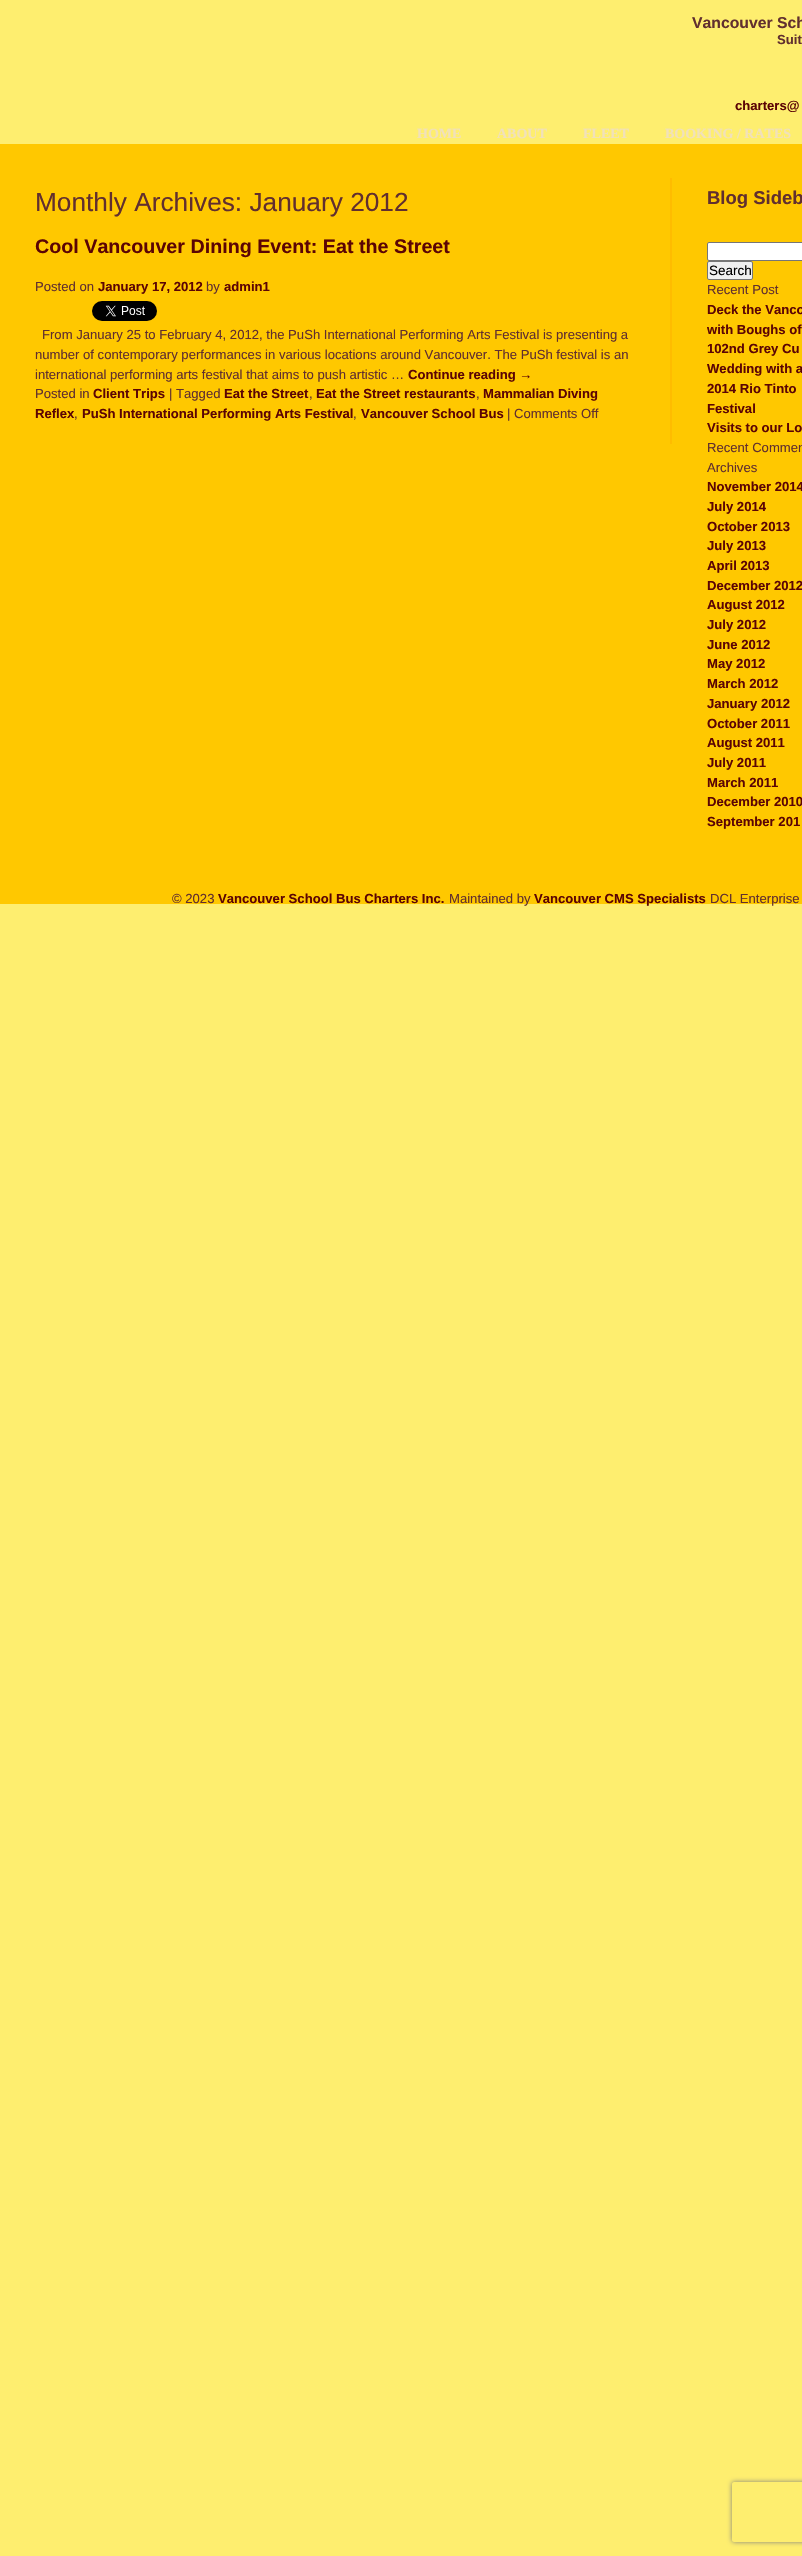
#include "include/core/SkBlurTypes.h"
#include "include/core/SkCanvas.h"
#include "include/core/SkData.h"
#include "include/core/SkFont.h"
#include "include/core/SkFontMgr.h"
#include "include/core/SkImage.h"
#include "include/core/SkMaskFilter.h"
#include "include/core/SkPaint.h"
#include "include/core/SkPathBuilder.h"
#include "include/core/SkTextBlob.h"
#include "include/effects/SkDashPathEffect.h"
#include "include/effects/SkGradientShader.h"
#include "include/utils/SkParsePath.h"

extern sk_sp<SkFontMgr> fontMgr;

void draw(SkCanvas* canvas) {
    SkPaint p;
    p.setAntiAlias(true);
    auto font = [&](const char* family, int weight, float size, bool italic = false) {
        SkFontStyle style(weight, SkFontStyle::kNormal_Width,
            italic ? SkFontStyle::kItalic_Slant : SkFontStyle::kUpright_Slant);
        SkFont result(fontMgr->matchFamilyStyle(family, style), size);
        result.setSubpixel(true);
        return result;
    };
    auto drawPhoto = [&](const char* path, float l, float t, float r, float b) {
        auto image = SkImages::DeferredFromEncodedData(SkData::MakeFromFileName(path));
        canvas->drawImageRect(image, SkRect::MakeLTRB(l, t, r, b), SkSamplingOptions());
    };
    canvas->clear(0xFFFEEE6F);
    auto font1 = font("Liberation Sans", 700, 15.75f);
    p.setColor(0xFF612F2F);
    canvas->drawString("Vancouver Sch", 692, 28, font1, p);
    auto font2 = font("Liberation Sans", 700, 13.1f);
    canvas->drawString("Suit", 777, 44, font2, p);
    p.setColor(0xFF5B0404);
    canvas->drawString("charters@", 735, 110, font2, p);
    auto font3 = font("Liberation Serif", 700, 14);
    p.setColor(0xFFF1E1BA);
    {
        const struct { const char* s; float x, y; } items[] = {
            {"HOME", 417, 138},
            {"ABOUT", 497, 138},
            {"FLEET", 583, 138},
            {"BOOKING / RATES", 665, 138},
        };
        for (auto [s, x, y] : items) {
            canvas->drawString(s, x, y, font3, p);
        }
    }
    p.setColor(0xFFFFC800);
    canvas->drawRect(SkRect::MakeLTRB(0, 144, 802, 904), p);
    p.setColor(0xFFFFBC00);
    canvas->drawRect(SkRect::MakeLTRB(670, 178, 672, 444), p);
    auto font4 = font("Liberation Sans", 400, 26.25f);
    p.setColor(0xFF612F2F);
    canvas->drawString("Monthly Archives: January 2012", 35, 211, font4, p);
    auto font5 = font("Liberation Sans", 700, 19.7f);
    p.setColor(0xFF5B0404);
    canvas->drawString("Cool Vancouver Dining Event: Eat the Street", 35, 253, font5, p);
    auto font6 = font("Liberation Sans", 400, 13.1f);
    p.setColor(0xFF612F2F);
    canvas->drawString("Posted on", 35, 291, font6, p);
    p.setColor(0xFF5B0404);
    canvas->drawString("January 17, 2012", 98, 291, font2, p);
    p.setColor(0xFF612F2F);
    canvas->drawString("by", 206, 291, font6, p);
    p.setColor(0xFF5B0404);
    canvas->drawString("admin1", 224, 291, font2, p);
    drawPhoto("media/1.png", 92, 301, 157, 321);
    p.setColor(0xFF612F2F);
    {
        const struct { const char* s; float x, y; } items[] = {
            {"From January 25 to February 4, 2012, the PuSh International Performing Arts Festival is presenting a", 42, 339},
            {"number of contemporary performances in various locations around Vancouver. The PuSh festival is an", 35, 359},
            {"international performing arts festival that aims to push artistic …", 35, 379},
        };
        for (auto [s, x, y] : items) {
            canvas->drawString(s, x, y, font6, p);
        }
    }
    p.setColor(0xFF5B0404);
    canvas->drawString("Continue reading →", 408, 379, font2, p);
    p.setColor(0xFF612F2F);
    canvas->drawString("Posted in", 35, 398, font6, p);
    p.setColor(0xFF5B0404);
    canvas->drawString("Client Trips", 93, 398, font2, p);
    p.setColor(0xFF612F2F);
    canvas->drawString("| Tagged", 169, 398, font6, p);
    p.setColor(0xFF5B0404);
    canvas->drawString("Eat the Street", 224, 398, font2, p);
    p.setColor(0xFF612F2F);
    canvas->drawString(",", 309, 398, font6, p);
    p.setColor(0xFF5B0404);
    canvas->drawString("Eat the Street restaurants", 316, 398, font2, p);
    p.setColor(0xFF612F2F);
    canvas->drawString(",", 476, 398, font6, p);
    p.setColor(0xFF5B0404);
    canvas->drawString("Mammalian Diving", 483, 398, font2, p);
    canvas->drawString("Reflex", 35, 418, font2, p);
    p.setColor(0xFF612F2F);
    canvas->drawString(",", 74, 418, font6, p);
    p.setColor(0xFF5B0404);
    canvas->drawString("PuSh International Performing Arts Festival", 82, 418, font2, p);
    p.setColor(0xFF612F2F);
    canvas->drawString(",", 353, 418, font6, p);
    p.setColor(0xFF5B0404);
    canvas->drawString("Vancouver School Bus", 361, 418, font2, p);
    p.setColor(0xFF612F2F);
    canvas->drawString("| Comments Off", 507, 418, font6, p);
    auto font7 = font("Liberation Sans", 700, 18.5f);
    canvas->drawString("Blog Sideb", 707, 204, font7, p);
    p.setColor(0xFFFFFFFF);
    canvas->drawRoundRect(SkRect::MakeLTRB(707.5f, 242.5f, 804.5f, 260.5f), 1.5f, 1.5f, p);
    p.setStyle(SkPaint::kStroke_Style);
    p.setStrokeWidth(1);
    p.setColor(0xFF767676);
    canvas->drawRoundRect(SkRect::MakeLTRB(707.5f, 242.5f, 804.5f, 260.5f), 1.5f, 1.5f, p);
    p.setStyle(SkPaint::kFill_Style);
    p.setColor(0xFFEFEFEF);
    canvas->drawRoundRect(SkRect::MakeLTRB(707.5f, 261.5f, 752.5f, 279.5f), 1.5f, 1.5f, p);
    p.setStyle(SkPaint::kStroke_Style);
    p.setColor(0xFF767676);
    canvas->drawRoundRect(SkRect::MakeLTRB(707.5f, 261.5f, 752.5f, 279.5f), 1.5f, 1.5f, p);
    auto font8 = font("Liberation Sans", 400, 13.5f);
    p.setStyle(SkPaint::kFill_Style);
    p.setColor(0xFF000000);
    canvas->drawString("Search", 709, 275, font8, p);
    p.setColor(0xFF612F2F);
    canvas->drawString("Recent Post", 707, 294, font6, p);
    p.setColor(0xFF5B0404);
    {
        const struct { const char* s; float x, y; } items[] = {
            {"Deck the Vanco", 707, 314},
            {"with Boughs of", 707, 334},
            {"102nd Grey Cu", 707, 353},
            {"Wedding with a", 707, 373},
            {"2014 Rio Tinto", 707, 393},
            {"Festival", 707, 413},
            {"Visits to our Lo", 707, 432},
        };
        for (auto [s, x, y] : items) {
            canvas->drawString(s, x, y, font2, p);
        }
    }
    p.setColor(0xFF612F2F);
    canvas->drawString("Recent Commen", 707, 452, font6, p);
    canvas->drawString("Archives", 707, 472, font6, p);
    p.setColor(0xFF5B0404);
    {
        const struct { const char* s; float x, y; } items[] = {
            {"November 2014", 707, 491},
            {"July 2014", 707, 511},
            {"October 2013", 707, 531},
            {"July 2013", 707, 550},
            {"April 2013", 707, 570},
            {"December 2012", 707, 590},
            {"August 2012", 707, 609},
            {"July 2012", 707, 629},
            {"June 2012", 707, 649},
            {"May 2012", 707, 668},
            {"March 2012", 707, 688},
            {"January 2012", 707, 708},
            {"October 2011", 707, 728},
            {"August 2011", 707, 747},
            {"July 2011", 707, 767},
            {"March 2011", 707, 787},
            {"December 2010", 707, 806},
            {"September 201", 707, 826},
        };
        for (auto [s, x, y] : items) {
            canvas->drawString(s, x, y, font2, p);
        }
    }
    p.setColor(0xFF612F2F);
    canvas->drawString("© 2023", 172, 903, font6, p);
    p.setColor(0xFF5B0404);
    canvas->drawString("Vancouver School Bus Charters Inc.", 218, 903, font2, p);
    p.setColor(0xFF612F2F);
    canvas->drawString("Maintained by", 449, 903, font6, p);
    p.setColor(0xFF5B0404);
    canvas->drawString("Vancouver CMS Specialists", 534, 903, font2, p);
    p.setColor(0xFF612F2F);
    canvas->drawString("DCL Enterprise", 710, 903, font6, p);
    canvas->save();
    canvas->clipPath(SkPathBuilder(SkPathFillType::kEvenOdd).moveTo(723, 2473).lineTo(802, 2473).lineTo(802, 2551).lineTo(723, 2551).close().moveTo(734, 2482).lineTo(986, 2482).cubicTo(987, 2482, 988, 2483, 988, 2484).lineTo(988, 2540).cubicTo(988, 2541, 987, 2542, 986, 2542).lineTo(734, 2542).cubicTo(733, 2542, 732, 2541, 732, 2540).lineTo(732, 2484).cubicTo(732, 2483, 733, 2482, 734, 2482).close().detach(), true);
    p.setColor(0xFF808080);
    p.setMaskFilter(SkMaskFilter::MakeBlur(kNormal_SkBlurStyle, 2.5f));
    canvas->drawRoundRect(SkRect::MakeLTRB(732, 2482, 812, 2542), 2, 2, p);
    p.setMaskFilter(nullptr);
    canvas->restore();
}
